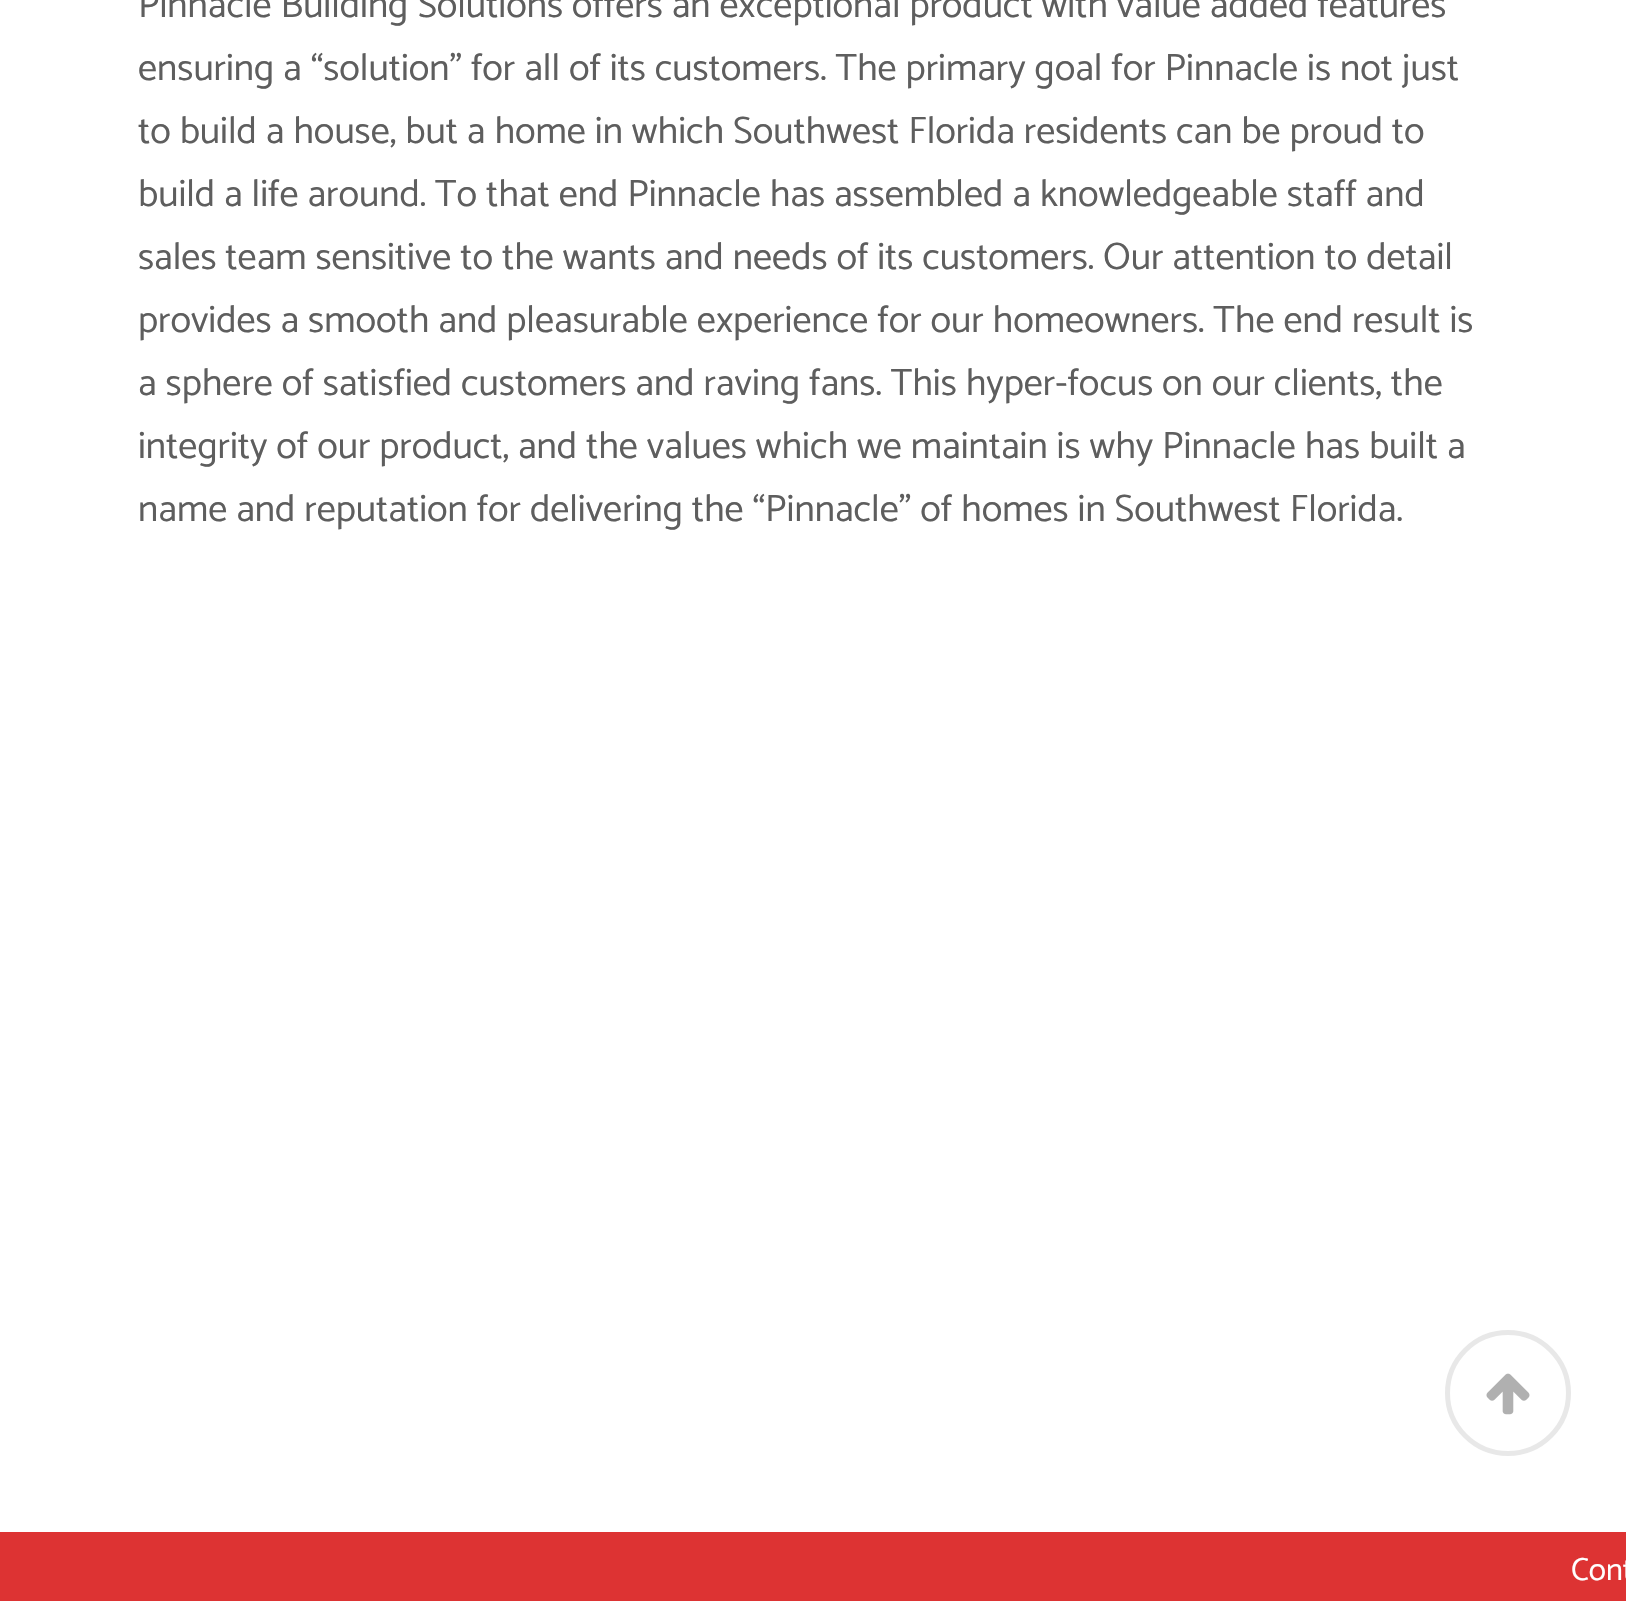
#include "include/core/SkBlurTypes.h"
#include "include/core/SkCanvas.h"
#include "include/core/SkData.h"
#include "include/core/SkFont.h"
#include "include/core/SkFontMgr.h"
#include "include/core/SkImage.h"
#include "include/core/SkMaskFilter.h"
#include "include/core/SkPaint.h"
#include "include/core/SkPathBuilder.h"
#include "include/core/SkTextBlob.h"
#include "include/effects/SkDashPathEffect.h"
#include "include/effects/SkGradientShader.h"
#include "include/utils/SkParsePath.h"

extern sk_sp<SkFontMgr> fontMgr;

void draw(SkCanvas* canvas) {
    SkPaint p;
    p.setAntiAlias(true);
    auto font = [&](const char* family, int weight, float size, bool italic = false) {
        SkFontStyle style(weight, SkFontStyle::kNormal_Width,
            italic ? SkFontStyle::kItalic_Slant : SkFontStyle::kUpright_Slant);
        SkFont result(fontMgr->matchFamilyStyle(family, style), size);
        result.setSubpixel(true);
        return result;
    };
    auto drawPhoto = [&](const char* path, float l, float t, float r, float b) {
        auto image = SkImages::DeferredFromEncodedData(SkData::MakeFromFileName(path));
        canvas->drawImageRect(image, SkRect::MakeLTRB(l, t, r, b), SkSamplingOptions());
    };
    canvas->clear(0xFFFFFFFF);
    auto font1 = font("Catamaran", 400, 38.25f);
    p.setColor(0xFF5E5E5E);
    {
        const struct { const char* s; float x, y; } items[] = {
            {"Pinnacle Building Solutions offers an exceptional product with value added features", 138, 17},
            {"ensuring a “solution” for all of its customers. The primary goal for Pinnacle is not just", 138, 80},
            {"to build a house, but a home in which Southwest Florida residents can be proud to", 138, 143},
            {"build a life around. To that end Pinnacle has assembled a knowledgeable staff and", 138, 206},
            {"sales team sensitive to the wants and needs of its customers. Our attention to detail", 138, 269},
            {"provides a smooth and pleasurable experience for our homeowners. The end result is", 138, 332},
            {"a sphere of satisfied customers and raving fans. This hyper-focus on our clients, the", 138, 395},
            {"integrity of our product, and the values which we maintain is why Pinnacle has built a", 138, 458},
            {"name and reputation for delivering the “Pinnacle” of homes in Southwest Florida.", 138, 521},
        };
        for (auto [s, x, y] : items) {
            canvas->drawString(s, x, y, font1, p);
        }
    }
    p.setStyle(SkPaint::kStroke_Style);
    p.setStrokeWidth(5);
    p.setColor(0xFFE8E8E8);
    canvas->drawCircle(1508, 1393, 60.5f, p);
    drawPhoto("media/1.png", 1486, 1373, 1530, 1415);
    p.setStyle(SkPaint::kFill_Style);
    p.setColor(0xFFDD3333);
    canvas->drawRect(SkRect::MakeLTRB(0, 1532, 1626, 1601), p);
    auto font2 = font("Catamaran", 400, 32);
    p.setColor(0xFFFFFFFF);
    canvas->drawString("Cont", 1571, 1580, font2, p);
}
